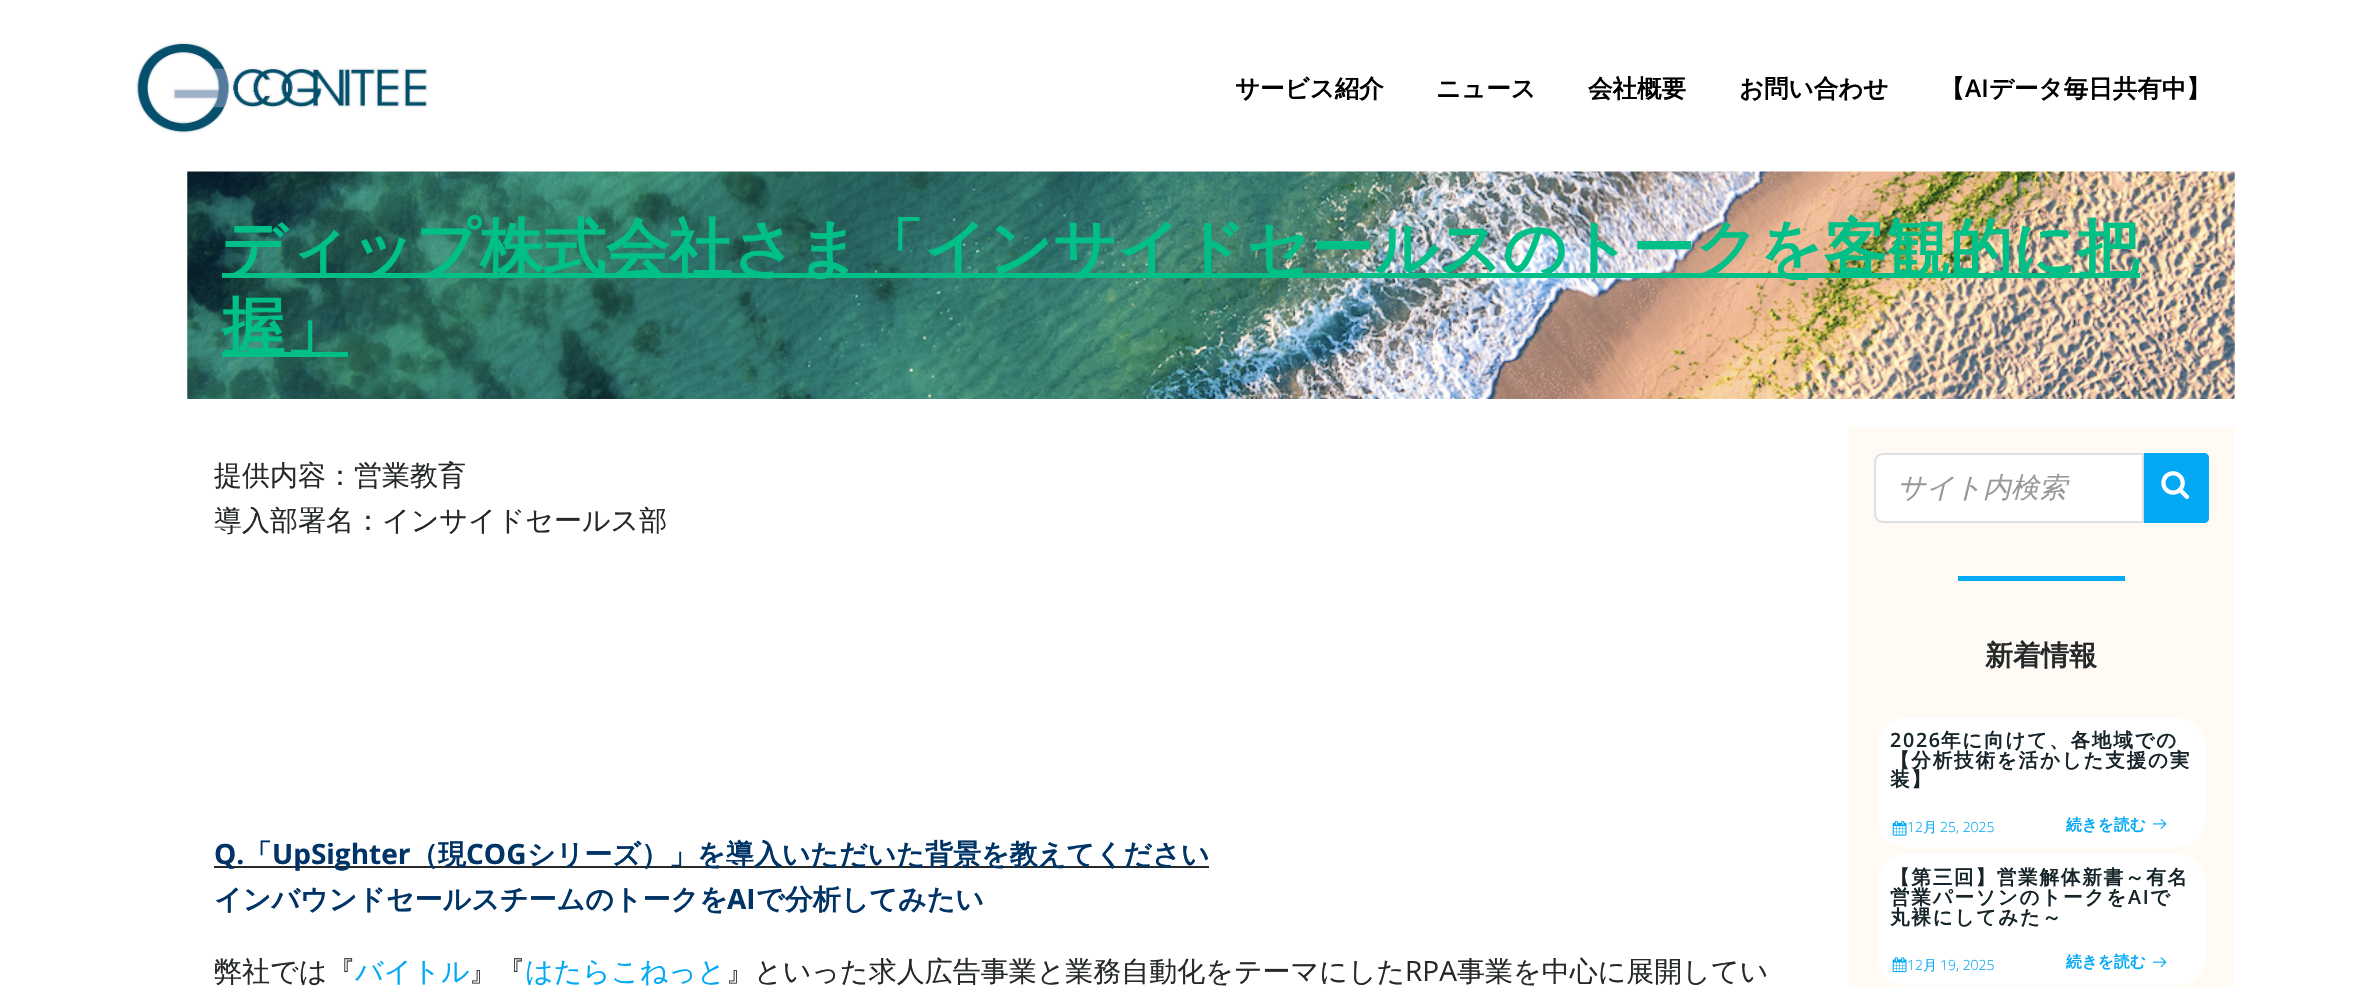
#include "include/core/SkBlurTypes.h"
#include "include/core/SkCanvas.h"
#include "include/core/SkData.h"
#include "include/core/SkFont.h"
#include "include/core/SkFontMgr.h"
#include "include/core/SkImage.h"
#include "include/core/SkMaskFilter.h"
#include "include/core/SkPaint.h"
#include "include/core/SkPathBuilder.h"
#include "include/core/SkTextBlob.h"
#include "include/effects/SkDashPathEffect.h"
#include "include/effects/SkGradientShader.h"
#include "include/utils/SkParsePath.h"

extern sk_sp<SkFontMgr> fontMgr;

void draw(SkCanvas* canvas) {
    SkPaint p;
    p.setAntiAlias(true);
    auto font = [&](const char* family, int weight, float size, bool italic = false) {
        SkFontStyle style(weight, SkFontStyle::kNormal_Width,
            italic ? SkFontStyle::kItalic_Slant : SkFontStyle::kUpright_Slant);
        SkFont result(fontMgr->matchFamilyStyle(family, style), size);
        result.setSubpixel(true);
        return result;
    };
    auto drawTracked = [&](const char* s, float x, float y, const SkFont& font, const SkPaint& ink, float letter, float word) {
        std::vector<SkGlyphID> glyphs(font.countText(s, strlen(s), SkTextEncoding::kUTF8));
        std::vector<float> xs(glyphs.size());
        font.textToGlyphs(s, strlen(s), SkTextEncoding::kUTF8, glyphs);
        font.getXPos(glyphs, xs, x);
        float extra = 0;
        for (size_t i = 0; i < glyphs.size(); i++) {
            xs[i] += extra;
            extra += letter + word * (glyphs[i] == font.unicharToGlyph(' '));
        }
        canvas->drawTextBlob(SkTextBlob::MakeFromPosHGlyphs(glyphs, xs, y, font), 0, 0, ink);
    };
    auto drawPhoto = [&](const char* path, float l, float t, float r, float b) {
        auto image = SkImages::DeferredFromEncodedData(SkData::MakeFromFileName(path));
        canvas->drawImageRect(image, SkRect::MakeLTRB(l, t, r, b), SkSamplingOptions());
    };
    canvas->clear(0xFFFFFFFF);
    drawPhoto("media/1.png", 136, 42, 428, 133);
    auto font1 = font("WenQuanYi Zen Hei", 700, 24.5f);
    p.setColor(0xFF000000);
    {
        const struct { const char* s; float x, y; } items[] = {
            {"サービス紹介", 1235, 97},
            {"ニュース", 1436, 97},
            {"会社概要", 1588, 97},
            {"お問い合わせ", 1739, 97},
            {"【", 1940, 97},
        };
        for (auto [s, x, y] : items) {
            canvas->drawString(s, x, y, font1, p);
        }
    }
    auto font2 = font("Open Sans", 600, 24.5f);
    canvas->drawString("AI", 1965, 97, font2, p);
    canvas->drawString("データ毎日共有中】", 1989, 97, font1, p);
    drawPhoto("media/2.png", 187, 171, 2235, 399);
    p.setColor(0xFF00BF87);
    canvas->drawRect(SkRect::MakeLTRB(222, 273, 2140, 278), p);
    auto font3 = font("WenQuanYi Zen Hei", 700, 63);
    canvas->drawString("ディップ株式会社さま「インサイドセールスのトークを客観的に把", 222, 270, font3, p);
    canvas->drawRect(SkRect::MakeLTRB(222, 352, 348, 357), p);
    canvas->drawString("握」", 222, 348, font3, p);
    auto font4 = font("WenQuanYi Zen Hei", 500, 28);
    p.setColor(0xFF25292A);
    canvas->drawString("提供内容：営業教育", 214, 485, font4, p);
    canvas->drawString("導入部署名：インサイドセールス部", 214, 530, font4, p);
    canvas->drawRect(SkRect::MakeLTRB(214, 866, 1209, 868), p);
    auto font5 = font("Open Sans", 700, 28);
    p.setColor(0xFF003366);
    canvas->drawString("Q.", 214, 864, font5, p);
    auto font6 = font("WenQuanYi Zen Hei", 700, 28);
    canvas->drawString("「", 244, 864, font6, p);
    canvas->drawString("UpSighter", 272, 864, font5, p);
    canvas->drawString("（現", 410, 864, font6, p);
    canvas->drawString("COG", 466, 864, font5, p);
    canvas->drawString("シリーズ）」を導入いただいた背景を教えてください", 527, 864, font6, p);
    canvas->drawString("インバウンドセールスチームのトークを", 214, 909, font6, p);
    canvas->drawString("AI", 727, 909, font5, p);
    canvas->drawString("で分析してみたい", 756, 909, font6, p);
    p.setColor(0xFF25292A);
    canvas->drawString("弊社では『", 214, 981, font4, p);
    p.setColor(0xFF03A9F4);
    canvas->drawString("バイトル", 355, 981, font4, p);
    p.setColor(0xFF25292A);
    canvas->drawString("』『", 469, 981, font4, p);
    p.setColor(0xFF03A9F4);
    canvas->drawString("はたらこねっと", 525, 981, font4, p);
    p.setColor(0xFF25292A);
    canvas->drawString("』といった求人広告事業と業務自動化をテーマにした", 726, 981, font4, p);
    auto font7 = font("Open Sans", 400, 28);
    canvas->drawString("RPA", 1405, 981, font7, p);
    canvas->drawString("事業を中心に展開してい", 1457, 981, font4, p);
    p.setColor(0xFFFFFAF3);
    canvas->drawRect(SkRect::MakeLTRB(1848, 427, 2235, 987), p);
    p.setColor(0xFFFFFFFF);
    canvas->drawPath(SkPathBuilder().moveTo(1883, 454).lineTo(2143, 454).lineTo(2143, 522).lineTo(1883, 522).cubicTo(1878.5f, 522, 1875, 518.5f, 1875, 514).lineTo(1875, 462).cubicTo(1875, 457.5f, 1878.5f, 454, 1883, 454).close().detach(), p);
    p.setStyle(SkPaint::kStroke_Style);
    p.setStrokeWidth(2);
    p.setColor(0xFFDEDEDE);
    canvas->drawPath(SkPathBuilder().moveTo(1883, 454).lineTo(2143, 454).lineTo(2143, 522).lineTo(1883, 522).cubicTo(1878.5f, 522, 1875, 518.5f, 1875, 514).lineTo(1875, 462).cubicTo(1875, 457.5f, 1878.5f, 454, 1883, 454).close().detach(), p);
    auto font8 = font("WenQuanYi Zen Hei", 500, 28, true);
    p.setStyle(SkPaint::kFill_Style);
    p.setColor(0xFF999999);
    canvas->drawString("サイト内検索", 1897, 497, font8, p);
    p.setColor(0xFF03A9F4);
    canvas->drawPath(SkPathBuilder().moveTo(2144, 453).lineTo(2204, 453).cubicTo(2207, 453, 2209, 455, 2209, 458).lineTo(2209, 518).cubicTo(2209, 521, 2207, 523, 2204, 523).lineTo(2144, 523).close().detach(), p);
    drawPhoto("media/3.png", 2161, 471, 2189, 499);
    canvas->drawRect(SkRect::MakeLTRB(1958, 576, 2125, 581), p);
    p.setColor(0xFF25292A);
    canvas->drawString("新着情報", 1985, 665, font6, p);
    p.setColor(0xFFFFFFFF);
    canvas->drawRoundRect(SkRect::MakeLTRB(1878, 718, 2205, 847), 26, 26, p);
    auto font9 = font("Open Sans", 600, 19.6f);
    p.setColor(0xFF17252A);
    drawTracked("2026", 1890, 747, font9, p, 1.75f, 0);
    auto font10 = font("WenQuanYi Zen Hei", 700, 19.6f);
    {
        const struct { const char* s; float x, y; } items[] = {
            {"年に向けて、各地域での", 1941, 747},
            {"【分析技術を活かした支援の実", 1890, 767},
            {"装】", 1890, 786},
        };
        for (auto [s, x, y] : items) {
            drawTracked(s, x, y, font10, p, 1.75f, 0);
        }
    }
    drawPhoto("media/4.png", 1892, 821, 1907, 836);
    auto font11 = font("Open Sans", 300, 14);
    p.setColor(0xFF03A9F4);
    canvas->drawString("12", 1907, 832, font11, p);
    auto font12 = font("WenQuanYi Zen Hei", 500, 14);
    canvas->drawString("月", 1923, 832, font12, p);
    canvas->drawString("25, 2025", 1940, 832, font11, p);
    auto font13 = font("WenQuanYi Zen Hei", 700, 15.75f);
    canvas->drawString("続きを読む", 2066, 830, font13, p);
    drawPhoto("media/5.png", 2153, 818, 2167, 829);
    p.setColor(0xFFFFFFFF);
    canvas->drawRoundRect(SkRect::MakeLTRB(1878, 854, 2205, 985), 26, 26, p);
    p.setColor(0xFF17252A);
    drawTracked("【第三回】営業解体新書～有名", 1890, 884, font10, p, 1.75f, 0);
    drawTracked("営業パーソンのトークを", 1890, 904, font10, p, 1.75f, 0);
    drawTracked("AI", 2128, 904, font9, p, 1.75f, 0);
    drawTracked("で", 2150, 904, font10, p, 1.75f, 0);
    drawTracked("丸裸にしてみた～", 1890, 924, font10, p, 1.75f, 0);
    drawPhoto("media/6.png", 1892, 957, 1907, 973);
    p.setColor(0xFF03A9F4);
    canvas->drawString("12", 1907, 970, font11, p);
    canvas->drawString("月", 1923, 970, font12, p);
    canvas->drawString("19, 2025", 1940, 970, font11, p);
    canvas->drawString("続きを読む", 2066, 967, font13, p);
    drawPhoto("media/7.png", 2153, 957, 2167, 968);
}
